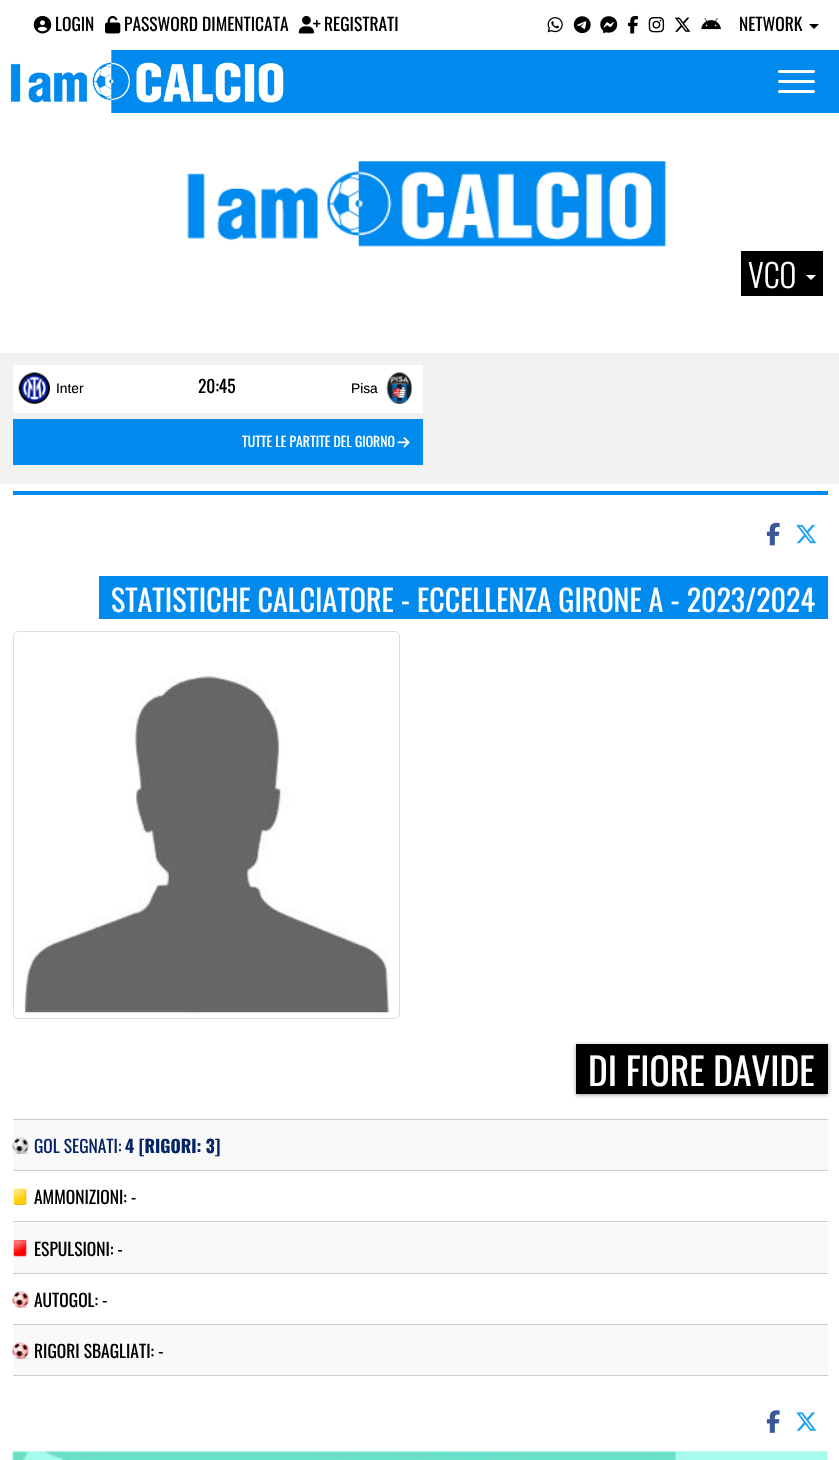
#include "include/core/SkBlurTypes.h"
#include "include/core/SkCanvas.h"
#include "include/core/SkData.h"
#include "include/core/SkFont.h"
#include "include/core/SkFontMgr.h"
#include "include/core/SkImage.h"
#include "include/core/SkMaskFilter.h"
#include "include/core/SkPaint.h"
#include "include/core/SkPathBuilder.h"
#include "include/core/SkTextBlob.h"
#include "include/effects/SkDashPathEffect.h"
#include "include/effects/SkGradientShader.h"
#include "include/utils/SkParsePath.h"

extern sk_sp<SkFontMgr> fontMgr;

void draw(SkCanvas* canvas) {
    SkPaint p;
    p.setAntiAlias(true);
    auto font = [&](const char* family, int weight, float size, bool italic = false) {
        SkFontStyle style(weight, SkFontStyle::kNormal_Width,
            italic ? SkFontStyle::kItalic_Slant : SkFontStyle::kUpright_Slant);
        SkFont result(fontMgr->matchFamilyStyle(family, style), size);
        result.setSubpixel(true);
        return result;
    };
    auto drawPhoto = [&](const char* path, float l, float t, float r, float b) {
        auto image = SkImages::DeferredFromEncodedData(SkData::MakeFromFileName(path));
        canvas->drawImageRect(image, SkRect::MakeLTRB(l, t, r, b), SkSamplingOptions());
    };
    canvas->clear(0xFFFFFFFF);
    drawPhoto("media/1.png", 33, 15, 52, 34);
    auto font1 = font("Oswald", 400, 17.5f);
    p.setColor(0xFF000000);
    canvas->drawString("LOGIN", 55, 31, font1, p);
    drawPhoto("media/2.png", 105, 15, 121, 34);
    canvas->drawString("PASSWORD DIMENTICATA", 124, 31, font1, p);
    drawPhoto("media/3.png", 298, 15, 321, 34);
    canvas->drawString("REGISTRATI", 324, 31, font1, p);
    drawPhoto("media/4.png", 547, 17, 563, 33);
    drawPhoto("media/5.png", 573, 16, 591, 34);
    drawPhoto("media/6.png", 600, 16, 618, 34);
    drawPhoto("media/7.png", 627, 15, 638, 34);
    drawPhoto("media/8.png", 648, 17, 665, 33);
    drawPhoto("media/9.png", 674, 17, 691, 32);
    drawPhoto("media/10.png", 701, 18, 721, 30);
    canvas->drawString("NETWORK", 739, 31, font1, p);
    canvas->drawPath(SkPathBuilder().moveTo(809, 24).lineTo(819, 24).lineTo(814, 29).close().detach(), p);
    p.setColor(0xFF008AED);
    canvas->drawRect(SkRect::MakeLTRB(10, 50, 839, 113), p);
    drawPhoto("media/11.png", 0, 50, 284, 113);
    p.setColor(0xFFFFFFFF);
    canvas->drawRoundRect(SkRect::MakeLTRB(778, 70, 815, 73), 1.5f, 1.5f, p);
    canvas->drawRoundRect(SkRect::MakeLTRB(778, 80, 815, 83), 1.5f, 1.5f, p);
    canvas->drawRoundRect(SkRect::MakeLTRB(778, 90, 815, 93), 1.5f, 1.5f, p);
    drawPhoto("media/12.png", 187, 161, 667, 247);
    p.setColor(0xFF000000);
    canvas->drawRect(SkRect::MakeLTRB(741, 251, 823, 296), p);
    auto font2 = font("Oswald", 300, 32);
    p.setColor(0xFFFFFFFF);
    canvas->drawString("VCO", 748, 288, font2, p);
    canvas->drawPath(SkPathBuilder().moveTo(806, 275).lineTo(816, 275).lineTo(811, 280).close().detach(), p);
    p.setColor(0xFFF1F1F1);
    canvas->drawRect(SkRect::MakeLTRB(0, 353, 839, 484), p);
    p.setColor(0xFFFFFFFF);
    canvas->drawRect(SkRect::MakeLTRB(13, 365, 423, 413), p);
    drawPhoto("media/13.png", 18, 372, 50, 404);
    auto font3 = font("Liberation Sans", 400, 13.75f);
    p.setColor(0xFF000000);
    canvas->drawString("Inter", 56, 393, font3, p);
    canvas->drawString("20:45", 198, 393, font1, p);
    drawPhoto("media/14.png", 386, 372, 413, 404);
    canvas->drawString("Pisa", 351, 393, font3, p);
    p.setColor(0xFF008AED);
    canvas->drawRect(SkRect::MakeLTRB(13, 419, 423, 465), p);
    auto font4 = font("Oswald", 400, 13.75f);
    p.setColor(0xFFFFFFFF);
    canvas->drawString("TUTTE LE PARTITE DEL GIORNO", 242, 447, font4, p);
    drawPhoto("media/15.png", 397, 437, 410, 448);
    p.setColor(0xFF008AED);
    canvas->drawRect(SkRect::MakeLTRB(13, 491, 828, 495), p);
    drawPhoto("media/16.png", 766, 522, 780, 546);
    drawPhoto("media/17.png", 796, 524, 817, 544);
    canvas->drawRect(SkRect::MakeLTRB(99, 576, 828, 619), p);
    auto font5 = font("Oswald", 400, 30);
    p.setColor(0xFFFFFFFF);
    canvas->drawString("STATISTICHE CALCIATORE - ECCELLENZA GIRONE A - 2023/2024", 111, 612, font5, p);
    p.setStyle(SkPaint::kStroke_Style);
    p.setStrokeWidth(1);
    p.setColor(0xFFDDDDDD);
    canvas->drawRoundRect(SkRect::MakeLTRB(13.5f, 631.5f, 399.5f, 1018.5f), 4.5f, 4.5f, p);
    drawPhoto("media/18.png", 24, 672, 389, 1013);
    p.setStyle(SkPaint::kFill_Style);
    p.setColor(0x803F3F3F);
    p.setMaskFilter(SkMaskFilter::MakeBlur(kNormal_SkBlurStyle, 2));
    canvas->drawRect(SkRect::MakeLTRB(576, 1045, 828, 1095), p);
    p.setMaskFilter(nullptr);
    p.setColor(0xFF000000);
    canvas->drawRect(SkRect::MakeLTRB(576, 1044, 828, 1094), p);
    auto font6 = font("Oswald", 400, 37.5f);
    p.setColor(0xFFFFFFFF);
    canvas->drawString("DI FIORE DAVIDE", 588, 1086, font6, p);
    p.setColor(0xFFF9F9F9);
    canvas->drawRect(SkRect::MakeLTRB(13, 1120, 828, 1170), p);
    drawPhoto("media/19.png", 12, 1137, 29, 1154);
    p.setColor(0xFFCCCCCC);
    canvas->drawRect(SkRect::MakeLTRB(13, 1119, 828, 1120), p);
    canvas->drawRect(SkRect::MakeLTRB(13, 1170, 828, 1171), p);
    p.setColor(0xFF052566);
    canvas->drawString("GOL SEGNATI:", 34, 1153, font1, p);
    auto font7 = font("Oswald", 700, 17.5f);
    canvas->drawString("4 [RIGORI: 3]", 125, 1153, font7, p);
    drawPhoto("media/20.png", 13, 1188, 27, 1205);
    p.setColor(0xFFCCCCCC);
    canvas->drawRect(SkRect::MakeLTRB(13, 1221, 828, 1222), p);
    p.setColor(0xFF000000);
    canvas->drawString("AMMONIZIONI: -", 34, 1204, font1, p);
    p.setColor(0xFFF9F9F9);
    canvas->drawRect(SkRect::MakeLTRB(13, 1223, 828, 1273), p);
    drawPhoto("media/21.png", 13, 1240, 27, 1257);
    p.setColor(0xFFCCCCCC);
    canvas->drawRect(SkRect::MakeLTRB(13, 1273, 828, 1274), p);
    p.setColor(0xFF000000);
    canvas->drawString("ESPULSIONI: -", 34, 1256, font1, p);
    drawPhoto("media/22.png", 12, 1291, 29, 1308);
    p.setColor(0xFFCCCCCC);
    canvas->drawRect(SkRect::MakeLTRB(13, 1324, 828, 1325), p);
    p.setColor(0xFF000000);
    canvas->drawString("AUTOGOL: -", 34, 1307, font1, p);
    p.setColor(0xFFF9F9F9);
    canvas->drawRect(SkRect::MakeLTRB(13, 1325, 828, 1375), p);
    drawPhoto("media/23.png", 12, 1342, 29, 1359);
    p.setColor(0xFFCCCCCC);
    canvas->drawRect(SkRect::MakeLTRB(13, 1375, 828, 1376), p);
    p.setColor(0xFF000000);
    canvas->drawString("RIGORI SBAGLIATI: -", 34, 1358, font1, p);
    drawPhoto("media/24.png", 766, 1410, 780, 1433);
    drawPhoto("media/25.png", 796, 1412, 817, 1431);
    drawPhoto("media/26.png", 12, 1451, 828, 1460);
}
